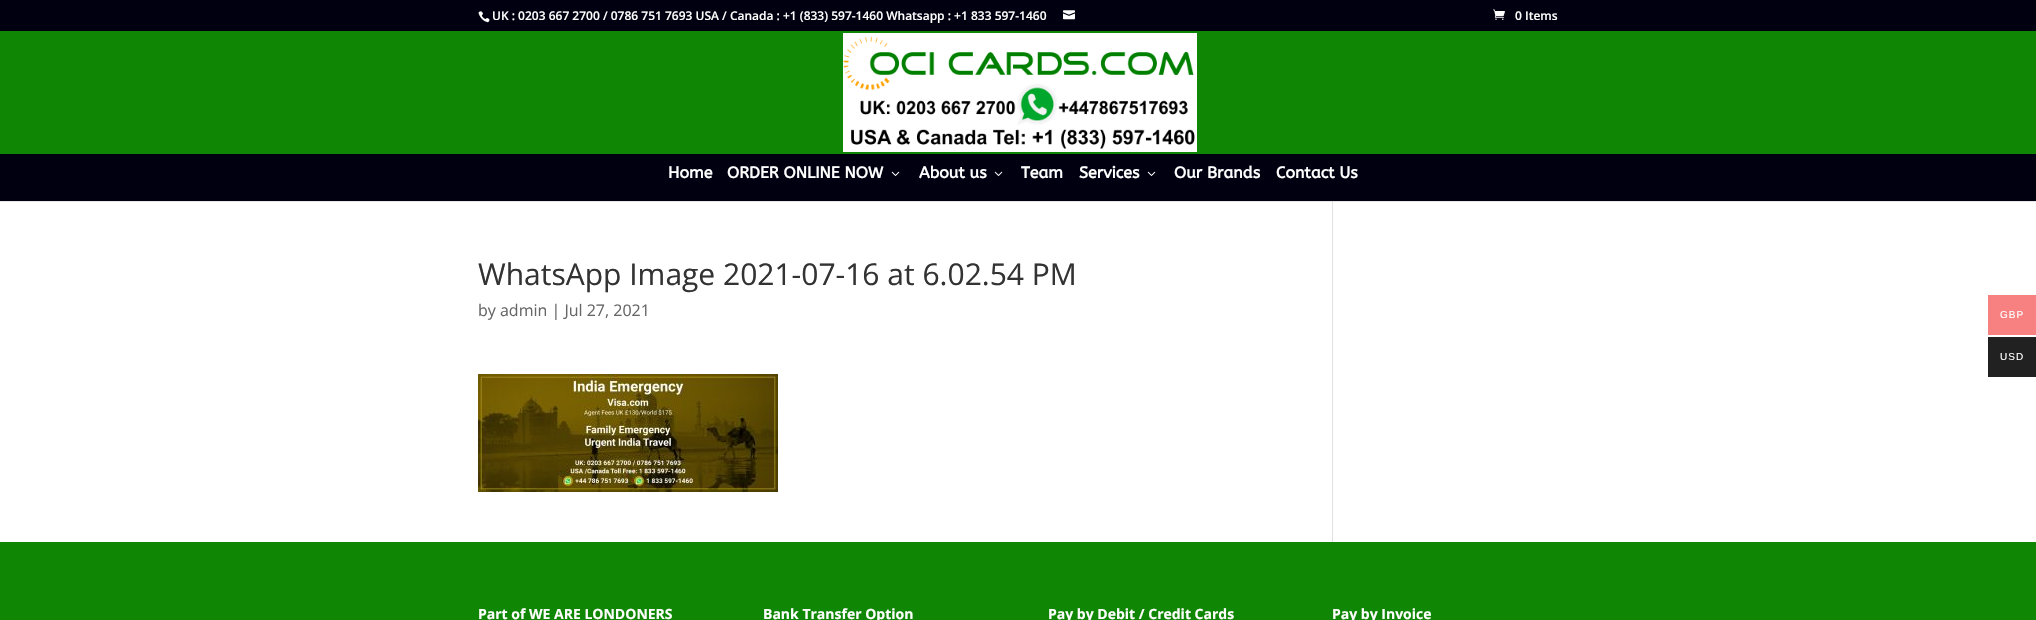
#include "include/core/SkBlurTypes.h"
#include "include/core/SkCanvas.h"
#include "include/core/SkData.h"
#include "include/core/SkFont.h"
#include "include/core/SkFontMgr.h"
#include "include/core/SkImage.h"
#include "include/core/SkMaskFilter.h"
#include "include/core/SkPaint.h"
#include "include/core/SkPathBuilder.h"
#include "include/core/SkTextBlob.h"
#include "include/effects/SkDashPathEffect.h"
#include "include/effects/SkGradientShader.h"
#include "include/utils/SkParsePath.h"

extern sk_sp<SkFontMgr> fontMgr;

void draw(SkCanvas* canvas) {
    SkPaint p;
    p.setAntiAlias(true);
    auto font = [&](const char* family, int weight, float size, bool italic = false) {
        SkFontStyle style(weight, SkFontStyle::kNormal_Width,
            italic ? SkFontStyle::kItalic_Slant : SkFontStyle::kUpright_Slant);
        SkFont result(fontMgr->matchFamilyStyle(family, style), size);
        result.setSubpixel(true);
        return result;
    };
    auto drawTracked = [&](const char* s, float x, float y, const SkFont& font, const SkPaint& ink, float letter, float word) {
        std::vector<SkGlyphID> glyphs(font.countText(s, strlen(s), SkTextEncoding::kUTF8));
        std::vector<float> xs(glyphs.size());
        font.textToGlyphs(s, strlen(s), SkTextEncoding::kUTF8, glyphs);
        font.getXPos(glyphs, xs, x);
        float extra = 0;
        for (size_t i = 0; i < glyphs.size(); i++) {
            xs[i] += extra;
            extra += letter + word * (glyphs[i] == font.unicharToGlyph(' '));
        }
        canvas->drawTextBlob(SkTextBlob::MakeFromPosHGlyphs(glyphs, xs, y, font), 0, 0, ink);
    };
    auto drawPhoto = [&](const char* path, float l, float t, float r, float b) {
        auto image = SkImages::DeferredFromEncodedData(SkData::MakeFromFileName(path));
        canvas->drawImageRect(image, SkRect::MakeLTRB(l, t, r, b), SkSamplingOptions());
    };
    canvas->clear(0xFFFFFFFF);
    p.setColor(0xFFE6E6E6);
    canvas->drawRect(SkRect::MakeLTRB(0, 201, 2036, 202), p);
    p.setColor(0xFF010010);
    canvas->drawRect(SkRect::MakeLTRB(0, 0, 2036, 31), p);
    drawPhoto("media/1.png", 478, 11, 490, 23);
    auto font1 = font("Open Sans", 600, 12);
    p.setColor(0xFFFFFFFF);
    canvas->drawString("UK : 0203 667 2700 / 0786 751 7693 USA / Canada : +1 (833) 597-1460 Whatsapp : +1 833 597-1460", 492, 20, font1, p);
    drawPhoto("media/2.png", 1063, 10, 1075, 20);
    drawPhoto("media/3.png", 1493, 9, 1505, 20);
    canvas->drawString("0 Items", 1515, 20, font1, p);
    p.setColor(0xFF0F8604);
    canvas->drawRect(SkRect::MakeLTRB(0, 31, 2036, 154), p);
    drawPhoto("media/4.png", 843, 33, 1197, 152);
    p.setColor(0xFF010010);
    canvas->drawRect(SkRect::MakeLTRB(0, 154, 2036, 201), p);
    auto font2 = font("ABeeZee", 700, 16);
    p.setColor(0xFFFFFFFF);
    canvas->drawString("Home", 668, 178, font2, p);
    canvas->drawString("ORDER ONLINE NOW", 727, 178, font2, p);
    drawPhoto("media/5.png", 891, 171, 900, 176);
    canvas->drawString("About us", 919, 178, font2, p);
    drawPhoto("media/5.png", 994, 171, 1003, 176);
    canvas->drawString("Team", 1021, 178, font2, p);
    canvas->drawString("Services", 1079, 178, font2, p);
    drawPhoto("media/5.png", 1147, 171, 1156, 176);
    canvas->drawString("Our Brands", 1174, 178, font2, p);
    canvas->drawString("Contact Us", 1276, 178, font2, p);
    auto font3 = font("Open Sans", 400, 30);
    p.setColor(0xFF333333);
    canvas->drawString("WhatsApp Image 2021-07-16 at 6.02.54 PM", 478, 285, font3, p);
    auto font4 = font("Open Sans", 400, 16);
    p.setColor(0xFF666666);
    canvas->drawString("by admin | Jul 27, 2021", 478, 316, font4, p);
    drawPhoto("media/6.png", 478, 374, 778, 492);
    {
        const struct { float l, t, r, b; SkColor color; } items[] = {
            {1332, 201, 1333, 542, 0xFFE2E2E2},
            {1332, 201, 1333, 202, 0xFFCBCBCB},
            {0, 542, 2036, 620, 0xFF0F8604},
        };
        for (auto [l, t, r, b, color] : items) {
            p.setColor(color);
            canvas->drawRect(SkRect::MakeLTRB(l, t, r, b), p);
        }
    }
    auto font5 = font("Open Sans", 700, 14);
    p.setColor(0xFFFFFFFF);
    {
        const struct { const char* s; float x, y; } items[] = {
            {"Part of WE ARE LONDONERS", 478, 619},
            {"Bank Transfer Option", 763, 619},
            {"Pay by Debit / Credit Cards", 1048, 619},
            {"Pay by Invoice", 1332, 619},
        };
        for (auto [s, x, y] : items) {
            canvas->drawString(s, x, y, font5, p);
        }
    }
    p.setColor(0xFFF78080);
    canvas->drawRect(SkRect::MakeLTRB(1988, 295, 2036, 335), p);
    auto font6 = font("Liberation Sans", 400, 10);
    p.setColor(0xFFFFFFFF);
    drawTracked("GBP", 2000, 318, font6, p, 1, 0);
    p.setColor(0xFF212121);
    canvas->drawRect(SkRect::MakeLTRB(1988, 337, 2036, 377), p);
    p.setColor(0xFFFFFFFF);
    drawTracked("USD", 2000, 360, font6, p, 1, 0);
}
